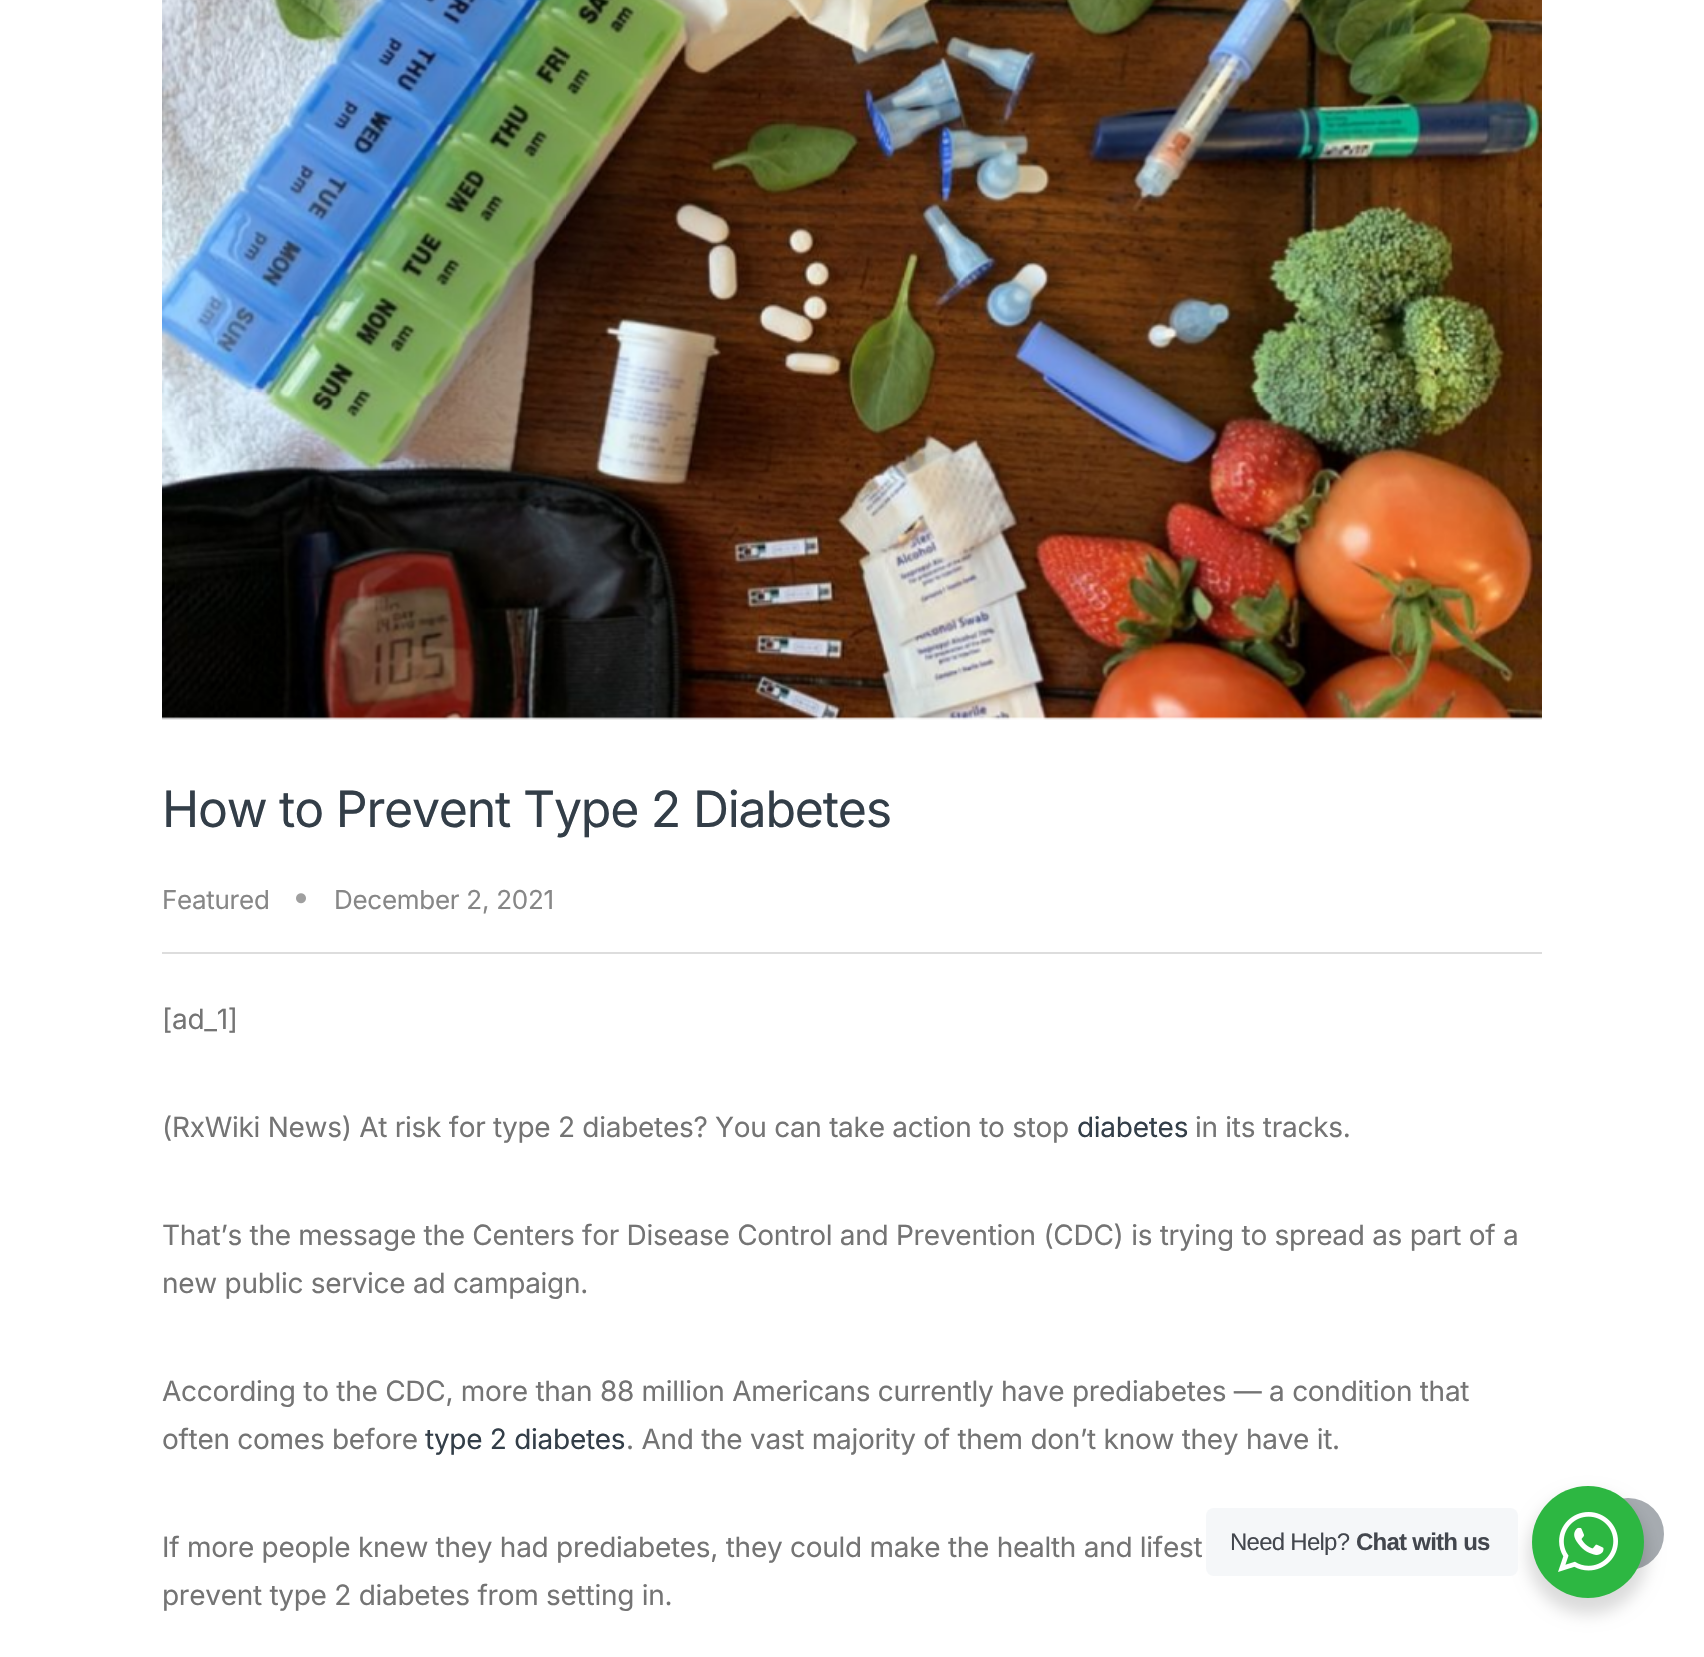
#include "include/core/SkBlurTypes.h"
#include "include/core/SkCanvas.h"
#include "include/core/SkData.h"
#include "include/core/SkFont.h"
#include "include/core/SkFontMgr.h"
#include "include/core/SkImage.h"
#include "include/core/SkMaskFilter.h"
#include "include/core/SkPaint.h"
#include "include/core/SkPathBuilder.h"
#include "include/core/SkTextBlob.h"
#include "include/effects/SkDashPathEffect.h"
#include "include/effects/SkGradientShader.h"
#include "include/utils/SkParsePath.h"

extern sk_sp<SkFontMgr> fontMgr;

void draw(SkCanvas* canvas) {
    SkPaint p;
    p.setAntiAlias(true);
    auto font = [&](const char* family, int weight, float size, bool italic = false) {
        SkFontStyle style(weight, SkFontStyle::kNormal_Width,
            italic ? SkFontStyle::kItalic_Slant : SkFontStyle::kUpright_Slant);
        SkFont result(fontMgr->matchFamilyStyle(family, style), size);
        result.setSubpixel(true);
        return result;
    };
    auto drawTracked = [&](const char* s, float x, float y, const SkFont& font, const SkPaint& ink, float letter, float word) {
        std::vector<SkGlyphID> glyphs(font.countText(s, strlen(s), SkTextEncoding::kUTF8));
        std::vector<float> xs(glyphs.size());
        font.textToGlyphs(s, strlen(s), SkTextEncoding::kUTF8, glyphs);
        font.getXPos(glyphs, xs, x);
        float extra = 0;
        for (size_t i = 0; i < glyphs.size(); i++) {
            xs[i] += extra;
            extra += letter + word * (glyphs[i] == font.unicharToGlyph(' '));
        }
        canvas->drawTextBlob(SkTextBlob::MakeFromPosHGlyphs(glyphs, xs, y, font), 0, 0, ink);
    };
    auto drawPhoto = [&](const char* path, float l, float t, float r, float b) {
        auto image = SkImages::DeferredFromEncodedData(SkData::MakeFromFileName(path));
        canvas->drawImageRect(image, SkRect::MakeLTRB(l, t, r, b), SkSamplingOptions());
    };
    canvas->clear(0xFFFFFFFF);
    drawPhoto("media/1.png", 162, 0, 1542, 720);
    p.setColor(0xFFDDDDDD);
    canvas->drawRect(SkRect::MakeLTRB(162, 952, 1542, 954), p);
    auto font1 = font("Inter", 400, 50);
    p.setColor(0xFF333E48);
    drawTracked("How to Prevent Type 2 Diabetes", 162, 827, font1, p, -1.25f, 0);
    auto font2 = font("Inter", 400, 26);
    p.setColor(0xFF878787);
    drawTracked("Featured", 162, 909, font2, p, -0.28f, 0);
    drawPhoto("media/2.png", 296, 893, 306, 904);
    drawTracked("December 2, 2021", 334, 909, font2, p, -0.28f, 0);
    auto font3 = font("Inter", 400, 28);
    p.setColor(0xFF747474);
    drawTracked("[ad_1]", 162, 1029, font3, p, -0.28f, 0);
    drawTracked("(RxWiki News) At risk for type 2 diabetes? You can take action to stop", 162, 1137, font3, p, -0.28f, 0);
    p.setColor(0xFF333E48);
    drawTracked("diabetes", 1077, 1137, font3, p, -0.28f, 0);
    p.setColor(0xFF747474);
    {
        const struct { const char* s; float x, y; } items[] = {
            {"in its tracks.", 1195, 1137},
            {"That’s the message the Centers for Disease Control and Prevention (CDC) is trying to spread as part of a", 162, 1245},
            {"new public service ad campaign.", 162, 1293},
            {"According to the CDC, more than 88 million Americans currently have prediabetes — a condition that", 162, 1401},
            {"often comes before", 162, 1449},
        };
        for (auto [s, x, y] : items) {
            drawTracked(s, x, y, font3, p, -0.28f, 0);
        }
    }
    p.setColor(0xFF333E48);
    drawTracked("type 2 diabetes", 425, 1449, font3, p, -0.28f, 0);
    p.setColor(0xFF747474);
    {
        const struct { const char* s; float x, y; } items[] = {
            {". And the vast majority of them don’t know they have it.", 626, 1449},
            {"If more people knew they had prediabetes, they could make the health and lifest", 162, 1557},
            {"prevent type 2 diabetes from setting in.", 162, 1605},
        };
        for (auto [s, x, y] : items) {
            drawTracked(s, x, y, font3, p, -0.28f, 0);
        }
    }
    p.setColor(0xFFA7ACB1);
    canvas->drawCircle(1628, 1534, 35, p);
    p.setStyle(SkPaint::kStroke_Style);
    p.setStrokeWidth(2);
    canvas->drawCircle(1628, 1534, 35, p);
    p.setStyle(SkPaint::kFill_Style);
    p.setColor(0x24000000);
    p.setMaskFilter(SkMaskFilter::MakeBlur(kNormal_SkBlurStyle, 8));
    canvas->drawRoundRect(SkRect::MakeLTRB(1528, 1494, 1648, 1614), 60, 60, p);
    p.setMaskFilter(nullptr);
    p.setColor(0xFFF5F7F9);
    canvas->drawRoundRect(SkRect::MakeLTRB(1206, 1508, 1518, 1576), 8, 8, p);
    auto font4 = font("Liberation Sans", 400, 24);
    p.setColor(0xFF43474E);
    drawTracked("Need Help?", 1230, 1550, font4, p, -0.75f, 0);
    auto font5 = font("Liberation Sans", 700, 24);
    drawTracked("Chat with us", 1356, 1550, font5, p, -0.75f, 0);
    p.setColor(0xFF2DB742);
    canvas->drawCircle(1588, 1542, 56, p);
    drawPhoto("media/3.png", 1558, 1512, 1618, 1572);
}
